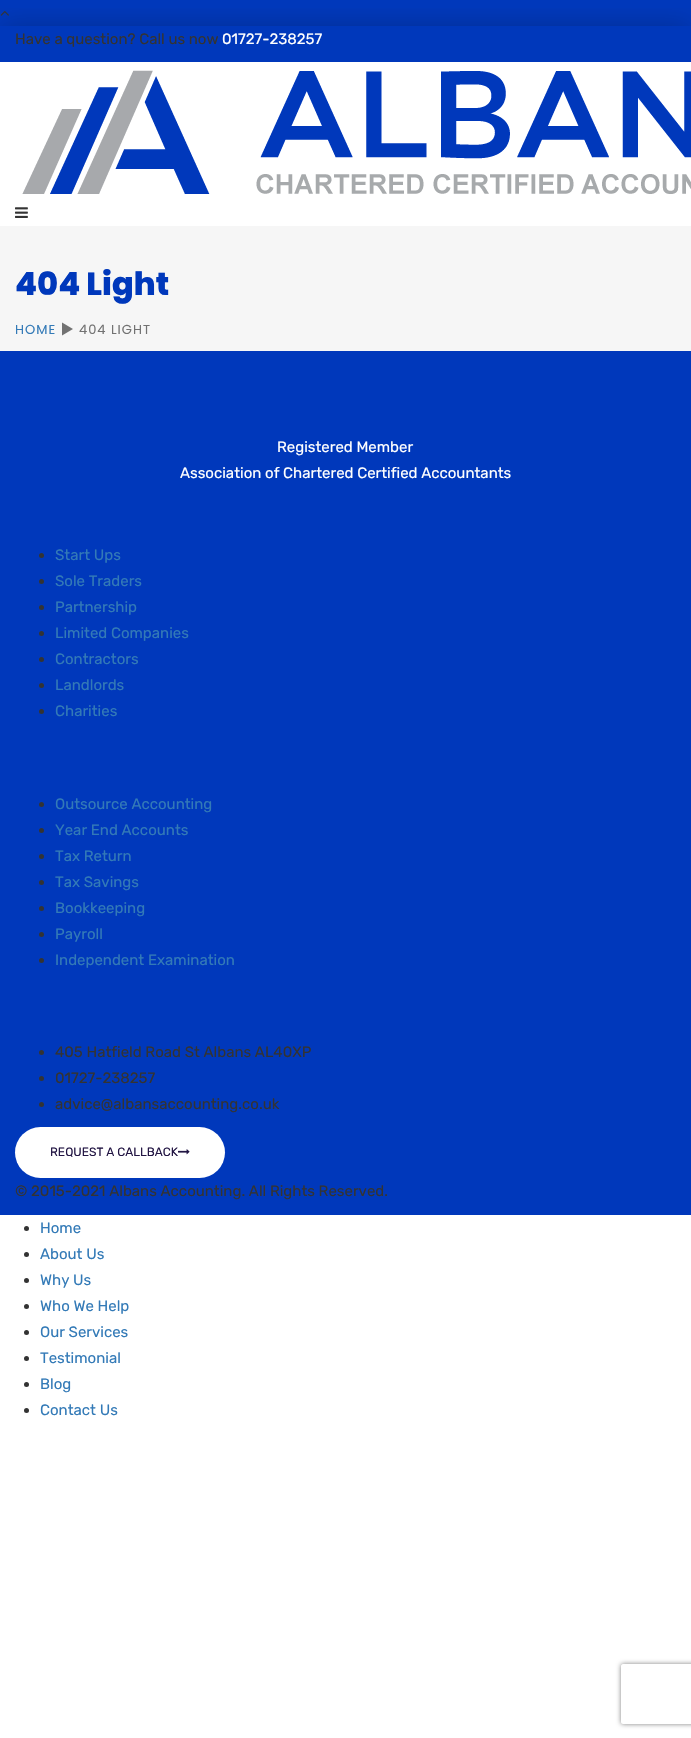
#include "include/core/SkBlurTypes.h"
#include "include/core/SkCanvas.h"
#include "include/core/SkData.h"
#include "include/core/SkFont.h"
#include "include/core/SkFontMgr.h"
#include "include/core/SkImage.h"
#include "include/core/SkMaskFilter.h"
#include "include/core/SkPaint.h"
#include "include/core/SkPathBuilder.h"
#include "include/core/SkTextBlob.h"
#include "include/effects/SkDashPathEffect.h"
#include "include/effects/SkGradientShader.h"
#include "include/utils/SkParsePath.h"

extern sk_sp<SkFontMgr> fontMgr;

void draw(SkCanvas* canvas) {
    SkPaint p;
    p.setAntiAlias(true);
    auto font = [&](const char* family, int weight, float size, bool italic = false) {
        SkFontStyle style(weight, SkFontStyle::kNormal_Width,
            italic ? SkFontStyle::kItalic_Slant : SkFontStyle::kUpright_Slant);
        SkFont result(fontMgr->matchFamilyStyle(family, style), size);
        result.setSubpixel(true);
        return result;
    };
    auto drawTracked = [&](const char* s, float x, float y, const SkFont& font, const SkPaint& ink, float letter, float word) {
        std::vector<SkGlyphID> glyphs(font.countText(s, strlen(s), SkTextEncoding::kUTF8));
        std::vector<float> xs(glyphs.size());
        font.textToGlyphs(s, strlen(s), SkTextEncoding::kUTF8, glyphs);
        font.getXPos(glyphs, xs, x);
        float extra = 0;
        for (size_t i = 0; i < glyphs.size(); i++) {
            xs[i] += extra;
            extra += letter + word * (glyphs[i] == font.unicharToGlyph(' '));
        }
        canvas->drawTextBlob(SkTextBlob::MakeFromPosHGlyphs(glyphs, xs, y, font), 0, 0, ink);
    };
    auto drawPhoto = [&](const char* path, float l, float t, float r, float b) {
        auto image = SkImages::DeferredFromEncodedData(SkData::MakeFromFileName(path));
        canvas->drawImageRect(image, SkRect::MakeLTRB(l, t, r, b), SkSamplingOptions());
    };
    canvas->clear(0xFFFFFFFF);
    p.setColor(0xFF0038BB);
    canvas->drawRect(SkRect::MakeLTRB(0, 0, 691, 26), p);
    canvas->save();
    canvas->clipRect(SkRect::MakeLTRB(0, 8, 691, 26));
    p.setColor(0x38050606);
    p.setMaskFilter(SkMaskFilter::MakeBlur(kNormal_SkBlurStyle, 13.5f));
    canvas->drawRect(SkRect::MakeLTRB(0, 26, 691, 226), p);
    p.setMaskFilter(nullptr);
    canvas->restore();
    drawPhoto("media/1.png", 0, 10, 9, 16);
    p.setColor(0xFF0038BB);
    canvas->drawRect(SkRect::MakeLTRB(0, 26, 691, 62), p);
    auto font1 = font("Rubik", 400, 15);
    p.setColor(0xFF333333);
    canvas->drawString("Have a question? Call us now", 15, 44, font1, p);
    p.setColor(0xFFFFFFFF);
    canvas->drawString("01727-238257", 222, 44, font1, p);
    drawPhoto("media/2.png", 22, 70, 691, 194);
    drawPhoto("media/3.png", 15, 207, 28, 218);
    p.setColor(0xFFF6F6F6);
    canvas->drawRect(SkRect::MakeLTRB(0, 226, 691, 351), p);
    auto font2 = font("Poppins", 800, 32);
    p.setColor(0xFF0038BB);
    canvas->drawString("404 Light", 15, 295, font2, p);
    auto font3 = font("Poppins", 400, 13);
    p.setColor(0xFF337AB7);
    drawTracked("HOME", 15, 334, font3, p, 1, 0);
    p.setColor(0xFF727272);
    canvas->drawPath(SkPathBuilder().moveTo(62, 322.5f).lineTo(73, 329).lineTo(62, 335.5f).close().detach(), p);
    drawTracked("404 LIGHT", 79, 334, font3, p, 1, 0);
    p.setColor(0xFF0038BB);
    canvas->drawRect(SkRect::MakeLTRB(0, 351, 691, 1215), p);
    p.setColor(0xFFFFFFFF);
    canvas->drawString("Registered Member", 277, 452, font1, p);
    canvas->drawString("Association of Chartered Certified Accountants", 180, 478, font1, p);
    p.setColor(0xFF333333);
    canvas->drawCircle(41.5f, 555.5f, 2.5f, p);
    p.setColor(0xFF337AB7);
    canvas->drawString("Start Ups", 55, 560, font1, p);
    p.setColor(0xFF333333);
    canvas->drawCircle(41.5f, 581.5f, 2.5f, p);
    p.setColor(0xFF337AB7);
    canvas->drawString("Sole Traders", 55, 586, font1, p);
    p.setColor(0xFF333333);
    canvas->drawCircle(41.5f, 607.5f, 2.5f, p);
    p.setColor(0xFF337AB7);
    canvas->drawString("Partnership", 55, 612, font1, p);
    p.setColor(0xFF333333);
    canvas->drawCircle(41.5f, 633.5f, 2.5f, p);
    p.setColor(0xFF337AB7);
    canvas->drawString("Limited Companies", 55, 638, font1, p);
    p.setColor(0xFF333333);
    canvas->drawCircle(41.5f, 659.5f, 2.5f, p);
    p.setColor(0xFF337AB7);
    canvas->drawString("Contractors", 55, 664, font1, p);
    p.setColor(0xFF333333);
    canvas->drawCircle(41.5f, 685.5f, 2.5f, p);
    p.setColor(0xFF337AB7);
    canvas->drawString("Landlords", 55, 690, font1, p);
    p.setColor(0xFF333333);
    canvas->drawCircle(41.5f, 711.5f, 2.5f, p);
    p.setColor(0xFF337AB7);
    canvas->drawString("Charities", 55, 716, font1, p);
    p.setColor(0xFF333333);
    canvas->drawCircle(41.5f, 804.5f, 2.5f, p);
    p.setColor(0xFF337AB7);
    canvas->drawString("Outsource Accounting", 55, 809, font1, p);
    p.setColor(0xFF333333);
    canvas->drawCircle(41.5f, 830.5f, 2.5f, p);
    p.setColor(0xFF337AB7);
    canvas->drawString("Year End Accounts", 55, 835, font1, p);
    p.setColor(0xFF333333);
    canvas->drawCircle(41.5f, 856.5f, 2.5f, p);
    p.setColor(0xFF337AB7);
    canvas->drawString("Tax Return", 55, 861, font1, p);
    p.setColor(0xFF333333);
    canvas->drawCircle(41.5f, 882.5f, 2.5f, p);
    p.setColor(0xFF337AB7);
    canvas->drawString("Tax Savings", 55, 887, font1, p);
    p.setColor(0xFF333333);
    canvas->drawCircle(41.5f, 908.5f, 2.5f, p);
    p.setColor(0xFF337AB7);
    canvas->drawString("Bookkeeping", 55, 913, font1, p);
    p.setColor(0xFF333333);
    canvas->drawCircle(41.5f, 934.5f, 2.5f, p);
    p.setColor(0xFF337AB7);
    canvas->drawString("Payroll", 55, 939, font1, p);
    p.setColor(0xFF333333);
    canvas->drawCircle(41.5f, 960.5f, 2.5f, p);
    p.setColor(0xFF337AB7);
    canvas->drawString("Independent Examination", 55, 965, font1, p);
    p.setColor(0xFF333333);
    canvas->drawCircle(41.5f, 1052.5f, 2.5f, p);
    canvas->drawString("405 Hatfield Road St Albans AL40XP", 55, 1057, font1, p);
    canvas->drawCircle(41.5f, 1078.5f, 2.5f, p);
    canvas->drawString("01727-238257", 55, 1083, font1, p);
    canvas->drawCircle(41.5f, 1104.5f, 2.5f, p);
    canvas->drawString("advice@albansaccounting.co.uk", 55, 1109, font1, p);
    p.setColor(0xFFFFFFFF);
    canvas->drawRoundRect(SkRect::MakeLTRB(15, 1127, 225, 1178), 25.5f, 25.5f, p);
    auto font4 = font("Rubik", 400, 12);
    p.setColor(0xFF221543);
    canvas->drawString("REQUEST A CALLBACK", 50, 1156, font4, p);
    drawPhoto("media/4.png", 178, 1149, 190, 1155);
    p.setColor(0xFF333333);
    canvas->drawString("© 2015-2021 Albans Accounting. All Rights Reserved.", 15, 1196, font1, p);
    canvas->drawCircle(26.5f, 1228.5f, 2.5f, p);
    p.setColor(0xFF337AB7);
    canvas->drawString("Home", 40, 1233, font1, p);
    p.setColor(0xFF333333);
    canvas->drawCircle(26.5f, 1254.5f, 2.5f, p);
    p.setColor(0xFF337AB7);
    canvas->drawString("About Us", 40, 1259, font1, p);
    p.setColor(0xFF333333);
    canvas->drawCircle(26.5f, 1280.5f, 2.5f, p);
    p.setColor(0xFF337AB7);
    canvas->drawString("Why Us", 40, 1285, font1, p);
    p.setColor(0xFF333333);
    canvas->drawCircle(26.5f, 1306.5f, 2.5f, p);
    p.setColor(0xFF337AB7);
    canvas->drawString("Who We Help", 40, 1311, font1, p);
    p.setColor(0xFF333333);
    canvas->drawCircle(26.5f, 1332.5f, 2.5f, p);
    p.setColor(0xFF337AB7);
    canvas->drawString("Our Services", 40, 1337, font1, p);
    p.setColor(0xFF333333);
    canvas->drawCircle(26.5f, 1358.5f, 2.5f, p);
    p.setColor(0xFF337AB7);
    canvas->drawString("Testimonial", 40, 1363, font1, p);
    p.setColor(0xFF333333);
    canvas->drawCircle(26.5f, 1384.5f, 2.5f, p);
    p.setColor(0xFF337AB7);
    canvas->drawString("Blog", 40, 1389, font1, p);
    p.setColor(0xFF333333);
    canvas->drawCircle(26.5f, 1410.5f, 2.5f, p);
    p.setColor(0xFF337AB7);
    canvas->drawString("Contact Us", 40, 1415, font1, p);
    canvas->save();
    canvas->clipPath(SkPathBuilder(SkPathFillType::kEvenOdd).moveTo(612, 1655).lineTo(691, 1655).lineTo(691, 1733).lineTo(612, 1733).close().moveTo(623, 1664).lineTo(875, 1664).cubicTo(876, 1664, 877, 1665, 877, 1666).lineTo(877, 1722).cubicTo(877, 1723, 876, 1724, 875, 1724).lineTo(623, 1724).cubicTo(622, 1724, 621, 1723, 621, 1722).lineTo(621, 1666).cubicTo(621, 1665, 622, 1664, 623, 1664).close().detach(), true);
    p.setColor(0xFF808080);
    p.setMaskFilter(SkMaskFilter::MakeBlur(kNormal_SkBlurStyle, 2.5f));
    canvas->drawRoundRect(SkRect::MakeLTRB(621, 1664, 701, 1724), 2, 2, p);
    p.setMaskFilter(nullptr);
    canvas->restore();
}
